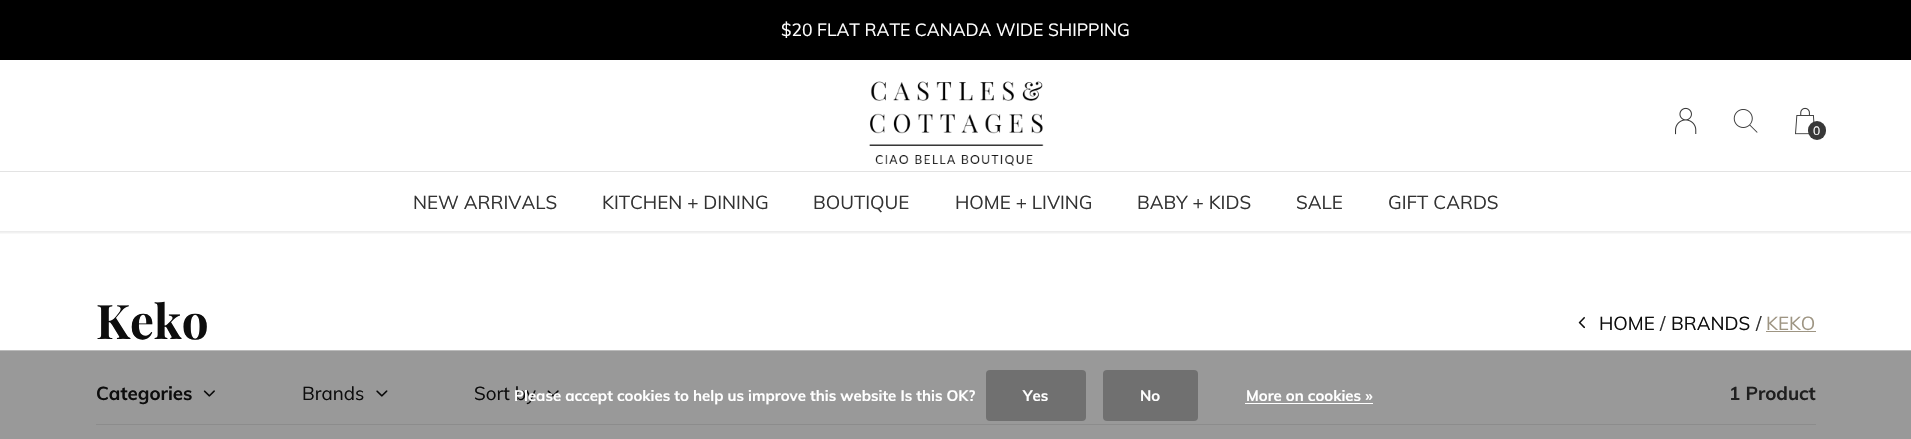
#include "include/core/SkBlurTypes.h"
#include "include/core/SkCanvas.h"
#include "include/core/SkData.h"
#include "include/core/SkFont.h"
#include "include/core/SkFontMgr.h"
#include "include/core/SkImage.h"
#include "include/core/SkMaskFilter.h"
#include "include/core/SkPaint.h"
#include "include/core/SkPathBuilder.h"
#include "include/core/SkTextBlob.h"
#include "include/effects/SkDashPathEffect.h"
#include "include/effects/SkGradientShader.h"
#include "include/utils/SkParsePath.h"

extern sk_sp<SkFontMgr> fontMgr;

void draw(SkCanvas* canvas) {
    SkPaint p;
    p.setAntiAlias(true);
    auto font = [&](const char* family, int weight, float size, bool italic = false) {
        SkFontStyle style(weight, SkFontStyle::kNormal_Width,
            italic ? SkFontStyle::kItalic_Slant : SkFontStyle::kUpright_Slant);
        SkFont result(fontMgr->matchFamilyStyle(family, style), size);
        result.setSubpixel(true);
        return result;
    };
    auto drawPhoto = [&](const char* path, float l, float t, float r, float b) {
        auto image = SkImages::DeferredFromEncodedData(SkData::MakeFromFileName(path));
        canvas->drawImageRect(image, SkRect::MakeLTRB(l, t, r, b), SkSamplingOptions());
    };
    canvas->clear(0xFFFFFFFF);
    p.setColor(0xFF999999);
    canvas->drawRect(SkRect::MakeLTRB(0, 351, 1911, 439), p);
    canvas->save();
    canvas->clipRect(SkRect::MakeLTRB(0, 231, 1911, 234));
    p.setColor(0x14000000);
    p.setMaskFilter(SkMaskFilter::MakeBlur(kNormal_SkBlurStyle, 1));
    canvas->drawRect(SkRect::MakeLTRB(-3, 1, 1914, 233), p);
    p.setMaskFilter(nullptr);
    canvas->restore();
    p.setColor(0xFF000000);
    canvas->drawRect(SkRect::MakeLTRB(0, 0, 1911, 60), p);
    auto font1 = font("Muli", 400, 17.5f);
    p.setColor(0xFFFFFFFF);
    canvas->drawString("$20 FLAT RATE CANADA WIDE SHIPPING", 781, 36, font1, p);
    drawPhoto("media/1.png", 869, 81, 1044, 166);
    drawPhoto("media/2.png", 1675, 107, 1697, 135);
    drawPhoto("media/3.png", 1733, 109, 1758, 133);
    drawPhoto("media/4.png", 1795, 107, 1815, 135);
    p.setColor(0xFF383838);
    canvas->drawRoundRect(SkRect::MakeLTRB(1808, 121, 1826, 140), 9, 9, p);
    auto font2 = font("Muli", 400, 12);
    p.setColor(0xFFFFFFFF);
    canvas->drawString("0", 1813, 135, font2, p);
    p.setColor(0xFFE3E3E3);
    canvas->drawRect(SkRect::MakeLTRB(0, 171, 1911, 172), p);
    auto font3 = font("Muli", 400, 18.75f);
    p.setColor(0xFF333333);
    {
        const struct { const char* s; float x, y; } items[] = {
            {"NEW ARRIVALS", 413, 209},
            {"KITCHEN + DINING", 602, 209},
            {"BOUTIQUE", 813, 209},
            {"HOME + LIVING", 955, 209},
            {"BABY + KIDS", 1137, 209},
            {"SALE", 1296, 209},
            {"GIFT CARDS", 1388, 209},
        };
        for (auto [s, x, y] : items) {
            canvas->drawString(s, x, y, font3, p);
        }
    }
    auto font4 = font("Playfair Display", 700, 47.5f);
    p.setColor(0xFF0D0D0D);
    canvas->drawString("Keko", 96, 339, font4, p);
    drawPhoto("media/5.png", 1578, 316, 1585, 329);
    canvas->drawString("HOME", 1599, 330, font3, p);
    p.setColor(0xFF333333);
    canvas->drawString("/", 1660, 330, font3, p);
    p.setColor(0xFF0D0D0D);
    canvas->drawString("BRANDS", 1671, 330, font3, p);
    p.setColor(0xFF333333);
    canvas->drawString("/", 1756, 330, font3, p);
    p.setColor(0xFF9E9583);
    canvas->drawString("KEKO", 1766, 330, font3, p);
    canvas->drawRect(SkRect::MakeLTRB(1766, 331, 1816, 332), p);
    p.setColor(0xFF8C8C8C);
    canvas->drawRect(SkRect::MakeLTRB(96, 424, 1816, 425), p);
    auto font5 = font("Muli", 700, 18.75f);
    p.setColor(0xFF0D0D0D);
    canvas->drawString("Categories", 96, 400, font5, p);
    drawPhoto("media/6.png", 203, 390, 215, 397);
    canvas->drawString("Brands", 302, 400, font3, p);
    drawPhoto("media/7.png", 376, 390, 388, 397);
    canvas->drawString("Sort by", 474, 400, font3, p);
    drawPhoto("media/8.png", 547, 390, 559, 397);
    p.setColor(0xFF1F1F1F);
    canvas->drawString("1 Product", 1729, 400, font5, p);
    p.setColor(0xFFBBBBBB);
    canvas->drawRect(SkRect::MakeLTRB(0, 350, 1911, 351), p);
    auto font6 = font("Muli", 700, 15);
    p.setColor(0xFFFFFFFF);
    canvas->drawString("Please accept cookies to help us improve this website Is this OK?", 514, 401, font6, p);
    p.setColor(0xFF707070);
    canvas->drawRoundRect(SkRect::MakeLTRB(986, 370, 1086, 421), 4, 4, p);
    p.setColor(0xFFFFFFFF);
    canvas->drawString("Yes", 1023, 401, font6, p);
    p.setColor(0xFF707070);
    canvas->drawRoundRect(SkRect::MakeLTRB(1103, 370, 1198, 421), 4, 4, p);
    p.setColor(0xFFFFFFFF);
    canvas->drawString("No", 1140, 401, font6, p);
    canvas->drawString("More on cookies »", 1246, 401, font6, p);
    canvas->drawRect(SkRect::MakeLTRB(1245, 403, 1373, 404), p);
}
